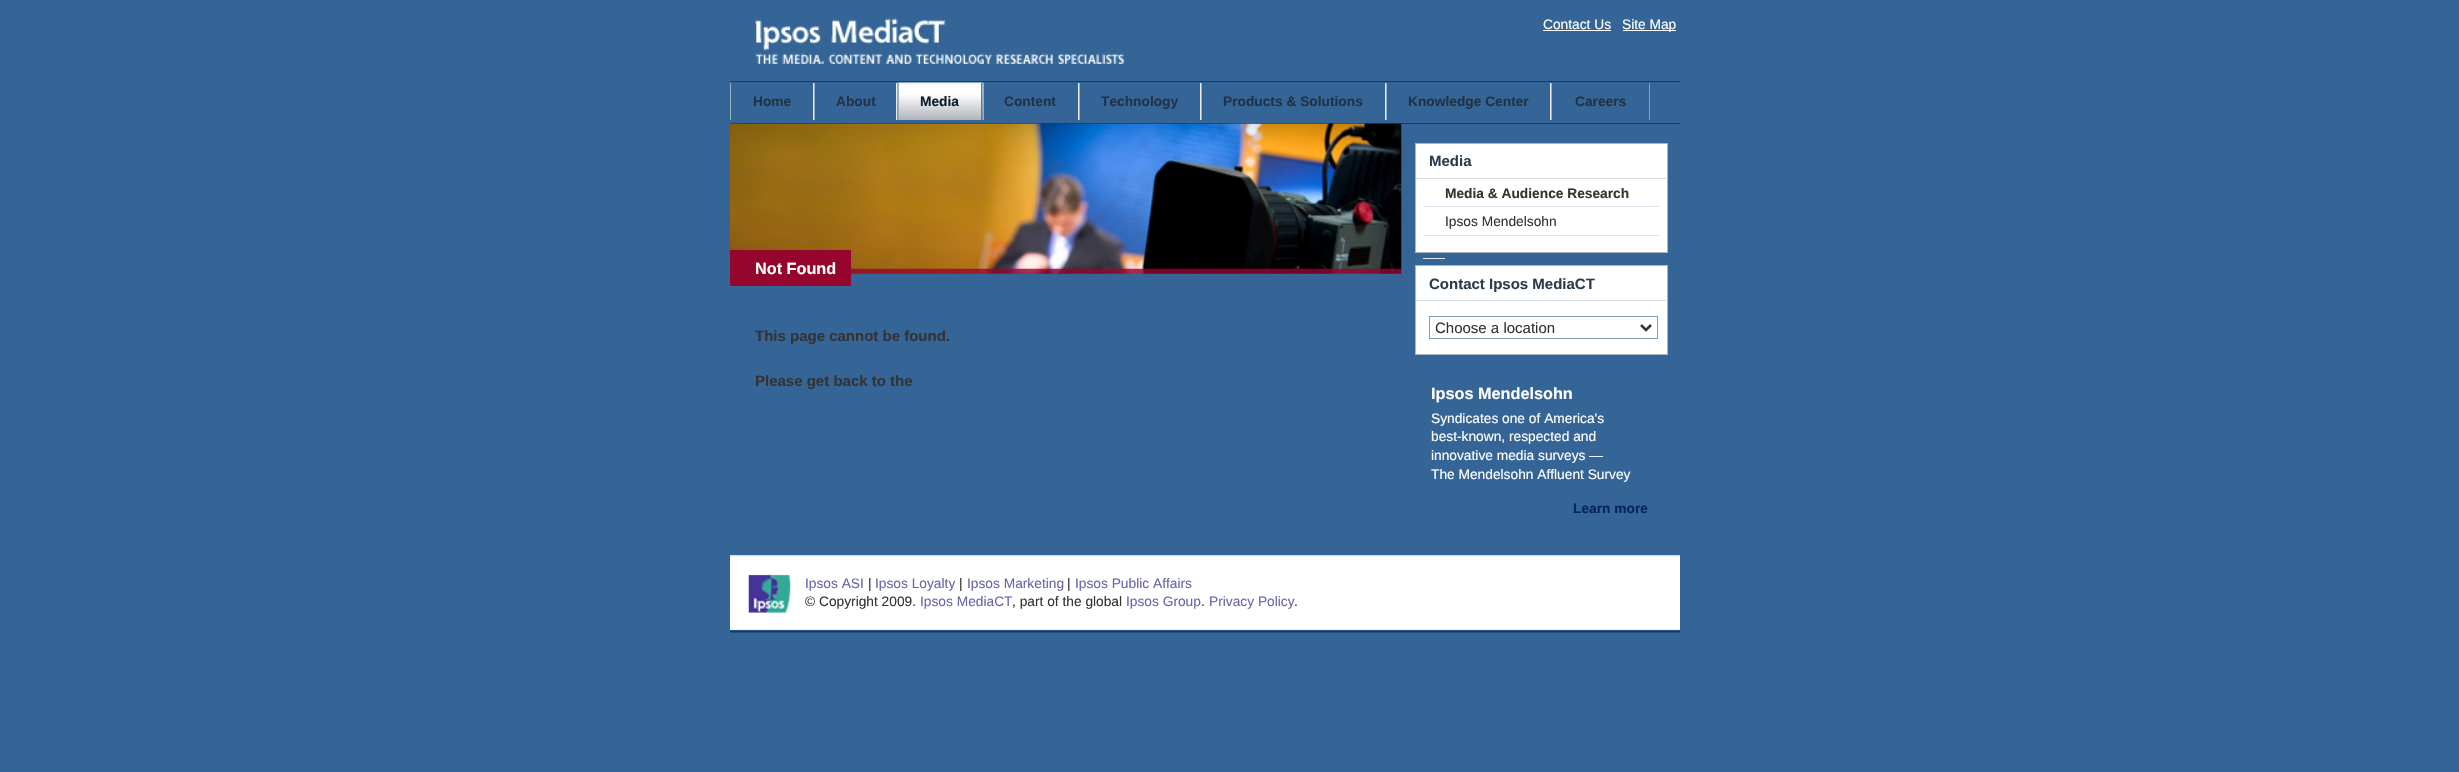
#include "include/core/SkBlurTypes.h"
#include "include/core/SkCanvas.h"
#include "include/core/SkData.h"
#include "include/core/SkFont.h"
#include "include/core/SkFontMgr.h"
#include "include/core/SkImage.h"
#include "include/core/SkMaskFilter.h"
#include "include/core/SkPaint.h"
#include "include/core/SkPathBuilder.h"
#include "include/core/SkTextBlob.h"
#include "include/effects/SkDashPathEffect.h"
#include "include/effects/SkGradientShader.h"
#include "include/utils/SkParsePath.h"

extern sk_sp<SkFontMgr> fontMgr;

void draw(SkCanvas* canvas) {
    SkPaint p;
    p.setAntiAlias(true);
    auto font = [&](const char* family, int weight, float size, bool italic = false) {
        SkFontStyle style(weight, SkFontStyle::kNormal_Width,
            italic ? SkFontStyle::kItalic_Slant : SkFontStyle::kUpright_Slant);
        SkFont result(fontMgr->matchFamilyStyle(family, style), size);
        result.setSubpixel(true);
        return result;
    };
    auto drawPhoto = [&](const char* path, float l, float t, float r, float b) {
        auto image = SkImages::DeferredFromEncodedData(SkData::MakeFromFileName(path));
        canvas->drawImageRect(image, SkRect::MakeLTRB(l, t, r, b), SkSamplingOptions());
    };
    canvas->clear(0xFF356596);
    drawPhoto("media/1.png", 755, 18, 1124, 64);
    auto font1 = font("Liberation Sans", 400, 13.75f);
    p.setColor(0xFFFFFFFF);
    canvas->drawString("Contact Us", 1543, 29, font1, p);
    canvas->drawRect(SkRect::MakeLTRB(1543, 30, 1611, 31), p);
    canvas->drawRect(SkRect::MakeLTRB(1623, 30, 1676, 31), p);
    canvas->drawString("Site Map", 1622, 29, font1, p);
    {
        const struct { float l, t, r, b; SkColor color; } items[] = {
            {730, 81, 1680, 82, 0xFF0D3D6E},
            {730, 123, 1680, 124, 0xFF0D3D6E},
            {813, 83, 814, 120, 0xFFEBEBF0},
            {730, 83, 731, 120, 0xFF98AEC3},
        };
        for (auto [l, t, r, b, color] : items) {
            p.setColor(color);
            canvas->drawRect(SkRect::MakeLTRB(l, t, r, b), p);
        }
    }
    auto font2 = font("Liberation Sans", 700, 13.75f);
    p.setColor(0xFF203244);
    canvas->drawString("Home", 753, 106, font2, p);
    p.setColor(0xFFEBEBF0);
    canvas->drawRect(SkRect::MakeLTRB(896, 83, 897, 120), p);
    p.setColor(0xFF98AEC3);
    canvas->drawRect(SkRect::MakeLTRB(814, 83, 815, 120), p);
    p.setColor(0xFF203244);
    canvas->drawString("About", 836, 106, font2, p);
    drawPhoto("media/2.png", 897, 82, 983, 120);
    p.setColor(0xFF737679);
    canvas->drawRect(SkRect::MakeLTRB(981, 83, 982, 120), p);
    p.setColor(0xFF98AEC3);
    canvas->drawRect(SkRect::MakeLTRB(898, 83, 899, 120), p);
    p.setColor(0xFF0C1E30);
    canvas->drawString("Media", 920, 106, font2, p);
    p.setColor(0xFFEBEBF0);
    canvas->drawRect(SkRect::MakeLTRB(1078, 83, 1079, 120), p);
    p.setColor(0xFF98AEC3);
    canvas->drawRect(SkRect::MakeLTRB(983, 83, 984, 120), p);
    p.setColor(0xFF203244);
    canvas->drawString("Content", 1004, 106, font2, p);
    p.setColor(0xFFEBEBF0);
    canvas->drawRect(SkRect::MakeLTRB(1200, 83, 1201, 120), p);
    p.setColor(0xFF98AEC3);
    canvas->drawRect(SkRect::MakeLTRB(1079, 83, 1080, 120), p);
    p.setColor(0xFF203244);
    canvas->drawString("Technology", 1101, 106, font2, p);
    p.setColor(0xFFEBEBF0);
    canvas->drawRect(SkRect::MakeLTRB(1385, 83, 1386, 120), p);
    p.setColor(0xFF98AEC3);
    canvas->drawRect(SkRect::MakeLTRB(1201, 83, 1202, 120), p);
    p.setColor(0xFF203244);
    canvas->drawString("Products & Solutions", 1223, 106, font2, p);
    p.setColor(0xFFEBEBF0);
    canvas->drawRect(SkRect::MakeLTRB(1550, 83, 1551, 120), p);
    p.setColor(0xFF98AEC3);
    canvas->drawRect(SkRect::MakeLTRB(1386, 83, 1387, 120), p);
    p.setColor(0xFF203244);
    canvas->drawString("Knowledge Center", 1408, 106, font2, p);
    p.setColor(0xFF889FB6);
    canvas->drawRect(SkRect::MakeLTRB(1649, 83, 1650, 120), p);
    p.setColor(0xFF98AEC3);
    canvas->drawRect(SkRect::MakeLTRB(1551, 83, 1552, 120), p);
    p.setColor(0xFF203244);
    canvas->drawString("Careers", 1575, 106, font2, p);
    drawPhoto("media/3.png", 730, 123, 1402, 274);
    p.setColor(0xFF96052D);
    canvas->drawRect(SkRect::MakeLTRB(730, 250, 851, 286), p);
    auto font3 = font("Liberation Sans", 700, 16.25f);
    p.setColor(0xFFFFFFFF);
    canvas->drawString("Not Found", 755, 274, font3, p);
    auto font4 = font("Liberation Sans", 700, 15);
    p.setColor(0xFF333333);
    canvas->drawString("This page cannot be found.", 755, 341, font4, p);
    canvas->drawString("Please get back to the", 755, 386, font4, p);
    p.setColor(0xFFFFFFFF);
    canvas->drawRect(SkRect::MakeLTRB(1415.5f, 143.5f, 1667.5f, 252.5f), p);
    p.setStyle(SkPaint::kStroke_Style);
    p.setStrokeWidth(1);
    p.setColor(0xFFACB5BE);
    canvas->drawRect(SkRect::MakeLTRB(1415.5f, 143.5f, 1667.5f, 252.5f), p);
    p.setStyle(SkPaint::kFill_Style);
    p.setColor(0xFFD4DDE6);
    canvas->drawRect(SkRect::MakeLTRB(1416, 178, 1666, 179), p);
    p.setColor(0xFF2A3C4E);
    canvas->drawString("Media", 1429, 166, font4, p);
    p.setColor(0xFFDEE7F0);
    canvas->drawRect(SkRect::MakeLTRB(1423, 206, 1660, 207), p);
    p.setColor(0xFF333333);
    canvas->drawString("Media & Audience Research", 1445, 198, font2, p);
    p.setColor(0xFFDEE7F0);
    canvas->drawRect(SkRect::MakeLTRB(1423, 235, 1660, 236), p);
    p.setColor(0xFF333333);
    canvas->drawString("Ipsos Mendelsohn", 1445, 226, font1, p);
    p.setColor(0xFFDEE7F0);
    canvas->drawRect(SkRect::MakeLTRB(1423, 258, 1445, 259), p);
    p.setColor(0xFFFFFFFF);
    canvas->drawRect(SkRect::MakeLTRB(1415.5f, 265.5f, 1667.5f, 354.5f), p);
    p.setStyle(SkPaint::kStroke_Style);
    p.setColor(0xFFACB5BE);
    canvas->drawRect(SkRect::MakeLTRB(1415.5f, 265.5f, 1667.5f, 354.5f), p);
    p.setStyle(SkPaint::kFill_Style);
    p.setColor(0xFFD4DDE6);
    canvas->drawRect(SkRect::MakeLTRB(1416, 300, 1666, 301), p);
    p.setColor(0xFF2A3C4E);
    canvas->drawString("Contact Ipsos MediaCT", 1429, 289, font4, p);
    p.setStyle(SkPaint::kStroke_Style);
    p.setColor(0xFF7F9DB9);
    canvas->drawRect(SkRect::MakeLTRB(1429.5f, 316.5f, 1657.5f, 338.5f), p);
    p.setStrokeWidth(2.5f);
    p.setColor(0xFF333333);
    canvas->drawPath(SkPathBuilder().moveTo(1641, 325).lineTo(1646, 330).lineTo(1651, 325).detach(), p);
    auto font5 = font("Liberation Sans", 400, 15);
    p.setStyle(SkPaint::kFill_Style);
    canvas->drawString("Choose a location", 1435, 333, font5, p);
    p.setColor(0xFFFFFFFF);
    canvas->drawString("Ipsos Mendelsohn", 1431, 399, font3, p);
    {
        const struct { const char* s; float x, y; } items[] = {
            {"Syndicates one of America's", 1431, 423},
            {"best-known, respected and", 1431, 441},
            {"innovative media surveys —", 1431, 460},
            {"The Mendelsohn Affluent Survey", 1431, 479},
        };
        for (auto [s, x, y] : items) {
            canvas->drawString(s, x, y, font1, p);
        }
    }
    p.setColor(0xFF03235C);
    canvas->drawString("Learn more", 1573, 513, font2, p);
    drawPhoto("media/4.png", 730, 555, 1680, 633);
    p.setColor(0xFF6666AA);
    canvas->drawString("Ipsos ASI", 805, 588, font1, p);
    p.setColor(0xFF333333);
    canvas->drawString("|", 868, 588, font1, p);
    p.setColor(0xFF6666AA);
    canvas->drawString("Ipsos Loyalty", 875, 588, font1, p);
    p.setColor(0xFF333333);
    canvas->drawString("|", 959, 588, font1, p);
    p.setColor(0xFF6666AA);
    canvas->drawString("Ipsos Marketing", 967, 588, font1, p);
    p.setColor(0xFF333333);
    canvas->drawString("|", 1067, 588, font1, p);
    p.setColor(0xFF6666AA);
    canvas->drawString("Ipsos Public Affairs", 1075, 588, font1, p);
    p.setColor(0xFF333333);
    canvas->drawString("© Copyright 2009.", 805, 606, font1, p);
    p.setColor(0xFF6666AA);
    canvas->drawString("Ipsos MediaCT", 920, 606, font1, p);
    p.setColor(0xFF333333);
    canvas->drawString(", part of the global", 1012, 606, font1, p);
    p.setColor(0xFF6666AA);
    canvas->drawString("Ipsos Group", 1126, 606, font1, p);
    p.setColor(0xFF333333);
    canvas->drawString(".", 1201, 606, font1, p);
    p.setColor(0xFF6666AA);
    canvas->drawString("Privacy Policy", 1209, 606, font1, p);
    p.setColor(0xFF333333);
    canvas->drawString(".", 1294, 606, font1, p);
}
